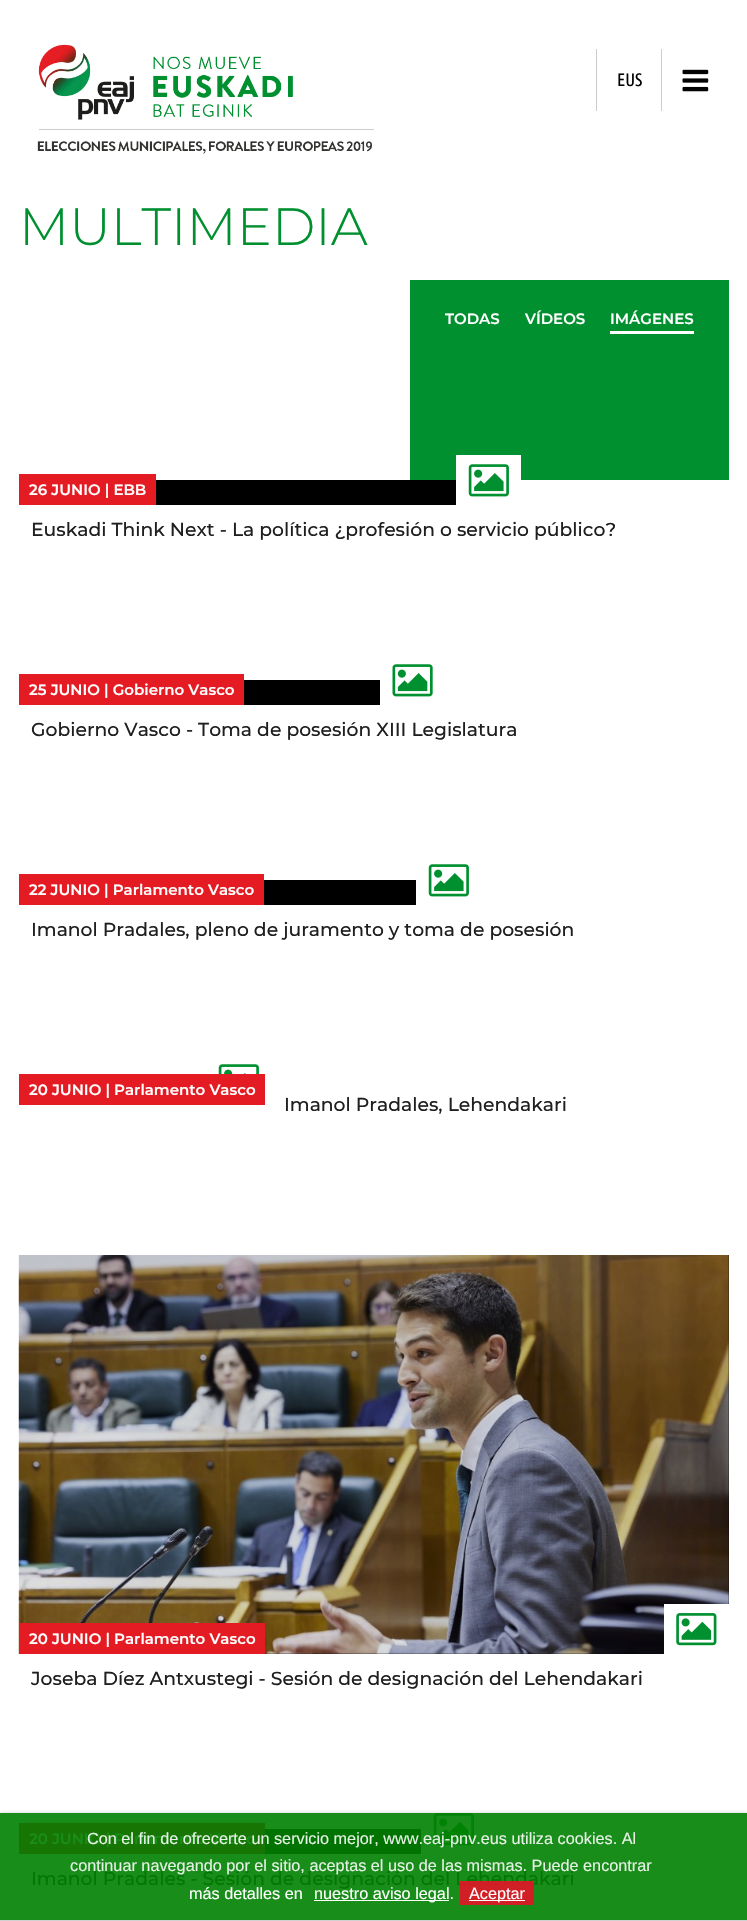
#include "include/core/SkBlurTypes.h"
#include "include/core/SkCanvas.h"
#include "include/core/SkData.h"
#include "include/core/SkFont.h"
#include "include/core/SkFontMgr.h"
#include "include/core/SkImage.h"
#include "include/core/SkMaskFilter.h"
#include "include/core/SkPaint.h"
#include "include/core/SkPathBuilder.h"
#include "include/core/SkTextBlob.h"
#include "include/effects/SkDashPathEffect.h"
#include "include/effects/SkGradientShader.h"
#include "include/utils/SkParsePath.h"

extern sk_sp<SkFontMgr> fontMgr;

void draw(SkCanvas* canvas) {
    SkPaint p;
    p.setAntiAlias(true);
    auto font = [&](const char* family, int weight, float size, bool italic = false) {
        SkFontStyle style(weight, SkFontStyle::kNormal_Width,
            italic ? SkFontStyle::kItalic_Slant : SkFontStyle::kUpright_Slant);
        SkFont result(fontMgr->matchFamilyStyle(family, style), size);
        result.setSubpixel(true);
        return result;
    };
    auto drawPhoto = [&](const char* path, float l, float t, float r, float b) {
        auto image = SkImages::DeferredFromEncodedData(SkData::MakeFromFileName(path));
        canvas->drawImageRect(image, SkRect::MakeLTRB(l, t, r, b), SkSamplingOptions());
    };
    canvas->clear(0xFFFFFFFF);
    p.setColor(0xFF198D19);
    canvas->drawRect(SkRect::MakeLTRB(0, 1813, 747, 1920), p);
    drawPhoto("media/1.png", 37, 44, 374, 154);
    p.setColor(0xFFCCCCCC);
    canvas->drawRect(SkRect::MakeLTRB(661, 49, 662, 111), p);
    canvas->drawRect(SkRect::MakeLTRB(596, 49, 597, 111), p);
    auto font1 = font("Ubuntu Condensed", 400, 18);
    p.setColor(0xFF030303);
    canvas->drawString("EUS", 617, 86, font1, p);
    drawPhoto("media/2.png", 682, 69, 709, 92);
    auto font2 = font("Montserrat", 300, 52.5f);
    p.setColor(0xFF00902F);
    canvas->drawString("MULTIMEDIA", 19, 245, font2, p);
    canvas->drawRect(SkRect::MakeLTRB(410, 280, 729, 480), p);
    auto font3 = font("Montserrat", 600, 15);
    p.setColor(0xFFFFFFFF);
    {
        const struct { const char* s; float x, y; } items[] = {
            {"TODAS", 445, 324},
            {"VÍDEOS", 525, 324},
            {"IMÁGENES", 610, 324},
        };
        for (auto [s, x, y] : items) {
            canvas->drawString(s, x, y, font3, p);
        }
    }
    {
        const struct { float l, t, r, b; SkColor color; } items[] = {
            {610, 331, 694, 334, 0xFFFFFFFF},
            {156, 480, 456, 505, 0xFF000000},
            {19, 474, 156, 505, 0xFFE51B23},
        };
        for (auto [l, t, r, b, color] : items) {
            p.setColor(color);
            canvas->drawRect(SkRect::MakeLTRB(l, t, r, b), p);
        }
    }
    p.setColor(0xFFFFFFFF);
    canvas->drawString("26 JUNIO | EBB", 29, 495, font3, p);
    canvas->drawRect(SkRect::MakeLTRB(456, 455, 521, 480), p);
    drawPhoto("media/3.png", 468, 464, 509, 497);
    auto font4 = font("Montserrat", 500, 18.75f);
    p.setColor(0xFF1F1F1F);
    canvas->drawString("Euskadi Think Next - La política ¿profesión o servicio público?", 31, 536, font4, p);
    p.setColor(0xFF000000);
    canvas->drawRect(SkRect::MakeLTRB(244, 680, 380, 705), p);
    p.setColor(0xFFE51B23);
    canvas->drawRect(SkRect::MakeLTRB(19, 674, 244, 705), p);
    p.setColor(0xFFFFFFFF);
    canvas->drawString("25 JUNIO | Gobierno Vasco", 29, 695, font3, p);
    drawPhoto("media/4.png", 392, 664, 433, 697);
    p.setColor(0xFF1F1F1F);
    canvas->drawString("Gobierno Vasco - Toma de posesión XIII Legislatura", 31, 736, font4, p);
    p.setColor(0xFF000000);
    canvas->drawRect(SkRect::MakeLTRB(264, 880, 416, 905), p);
    p.setColor(0xFFE51B23);
    canvas->drawRect(SkRect::MakeLTRB(19, 874, 264, 905), p);
    p.setColor(0xFFFFFFFF);
    canvas->drawString("22 JUNIO | Parlamento Vasco", 29, 895, font3, p);
    drawPhoto("media/3.png", 428, 864, 469, 897);
    p.setColor(0xFF1F1F1F);
    canvas->drawString("Imanol Pradales, pleno de juramento y toma de posesión", 31, 936, font4, p);
    drawPhoto("media/5.png", 218, 1064, 259, 1074);
    p.setColor(0xFFE51B23);
    canvas->drawRect(SkRect::MakeLTRB(19, 1074, 265, 1105), p);
    p.setColor(0xFFFFFFFF);
    canvas->drawString("20 JUNIO | Parlamento Vasco", 29, 1095, font3, p);
    p.setColor(0xFF1F1F1F);
    canvas->drawString("Imanol Pradales, Lehendakari", 284, 1111, font4, p);
    p.setColor(0xFF000000);
    canvas->drawRect(SkRect::MakeLTRB(19, 1255, 729, 1654), p);
    drawPhoto("media/6.png", 18, 1255, 729, 1654);
    p.setColor(0xFFE51B23);
    canvas->drawRect(SkRect::MakeLTRB(19, 1623, 265, 1654), p);
    p.setColor(0xFFFFFFFF);
    canvas->drawString("20 JUNIO | Parlamento Vasco", 29, 1644, font3, p);
    canvas->drawRect(SkRect::MakeLTRB(664, 1604, 729, 1654), p);
    drawPhoto("media/7.png", 676, 1613, 717, 1646);
    p.setColor(0xFF1F1F1F);
    canvas->drawString("Joseba Díez Antxustegi - Sesión de designación del Lehendakari", 31, 1685, font4, p);
    p.setColor(0xFF007300);
    canvas->drawRect(SkRect::MakeLTRB(265, 1829, 421, 1854), p);
    p.setColor(0xFF177603);
    canvas->drawRect(SkRect::MakeLTRB(19, 1823, 265, 1854), p);
    p.setColor(0xFF198D19);
    canvas->drawString("20 JUNIO | Parlamento Vasco", 29, 1844, font3, p);
    drawPhoto("media/8.png", 433, 1813, 474, 1846);
    p.setColor(0xFF037603);
    canvas->drawString("Imanol Pradales - Sesión de designación del Lehendakari", 31, 1885, font4, p);
    canvas->save();
    canvas->clipRect(SkRect::MakeLTRB(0, 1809, 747, 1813));
    p.setColor(0xFFD1D1D1);
    p.setMaskFilter(SkMaskFilter::MakeBlur(kNormal_SkBlurStyle, 2));
    canvas->drawRect(SkRect::MakeLTRB(0, 1813, 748, 1921), p);
    p.setMaskFilter(nullptr);
    canvas->restore();
    canvas->drawRect(SkRect::MakeLTRB(0, 1920, 747, 1921), p);
    auto font5 = font("Liberation Sans", 400, 16.25f);
    p.setColor(0xFFE7F2E7);
    canvas->drawString("Con el fin de ofrecerte un servicio mejor, www.eaj-pnv.eus utiliza cookies. Al", 87, 1844, font5, p);
    canvas->drawString("continuar navegando por el sitio, aceptas el uso de las mismas. Puede encontrar", 70, 1871, font5, p);
    p.setColor(0xFFFFFFFF);
    canvas->drawString("más detalles en", 189, 1899, font5, p);
    canvas->drawRect(SkRect::MakeLTRB(314, 1900, 449, 1901), p);
    canvas->drawString("nuestro aviso legal.", 314, 1899, font5, p);
    p.setColor(0xE6E41327);
    canvas->drawRect(SkRect::MakeLTRB(460, 1881, 534, 1905), p);
    p.setColor(0xFFFFFFFF);
    canvas->drawRect(SkRect::MakeLTRB(469, 1900, 525, 1901), p);
    canvas->drawString("Aceptar", 469, 1899, font5, p);
}
